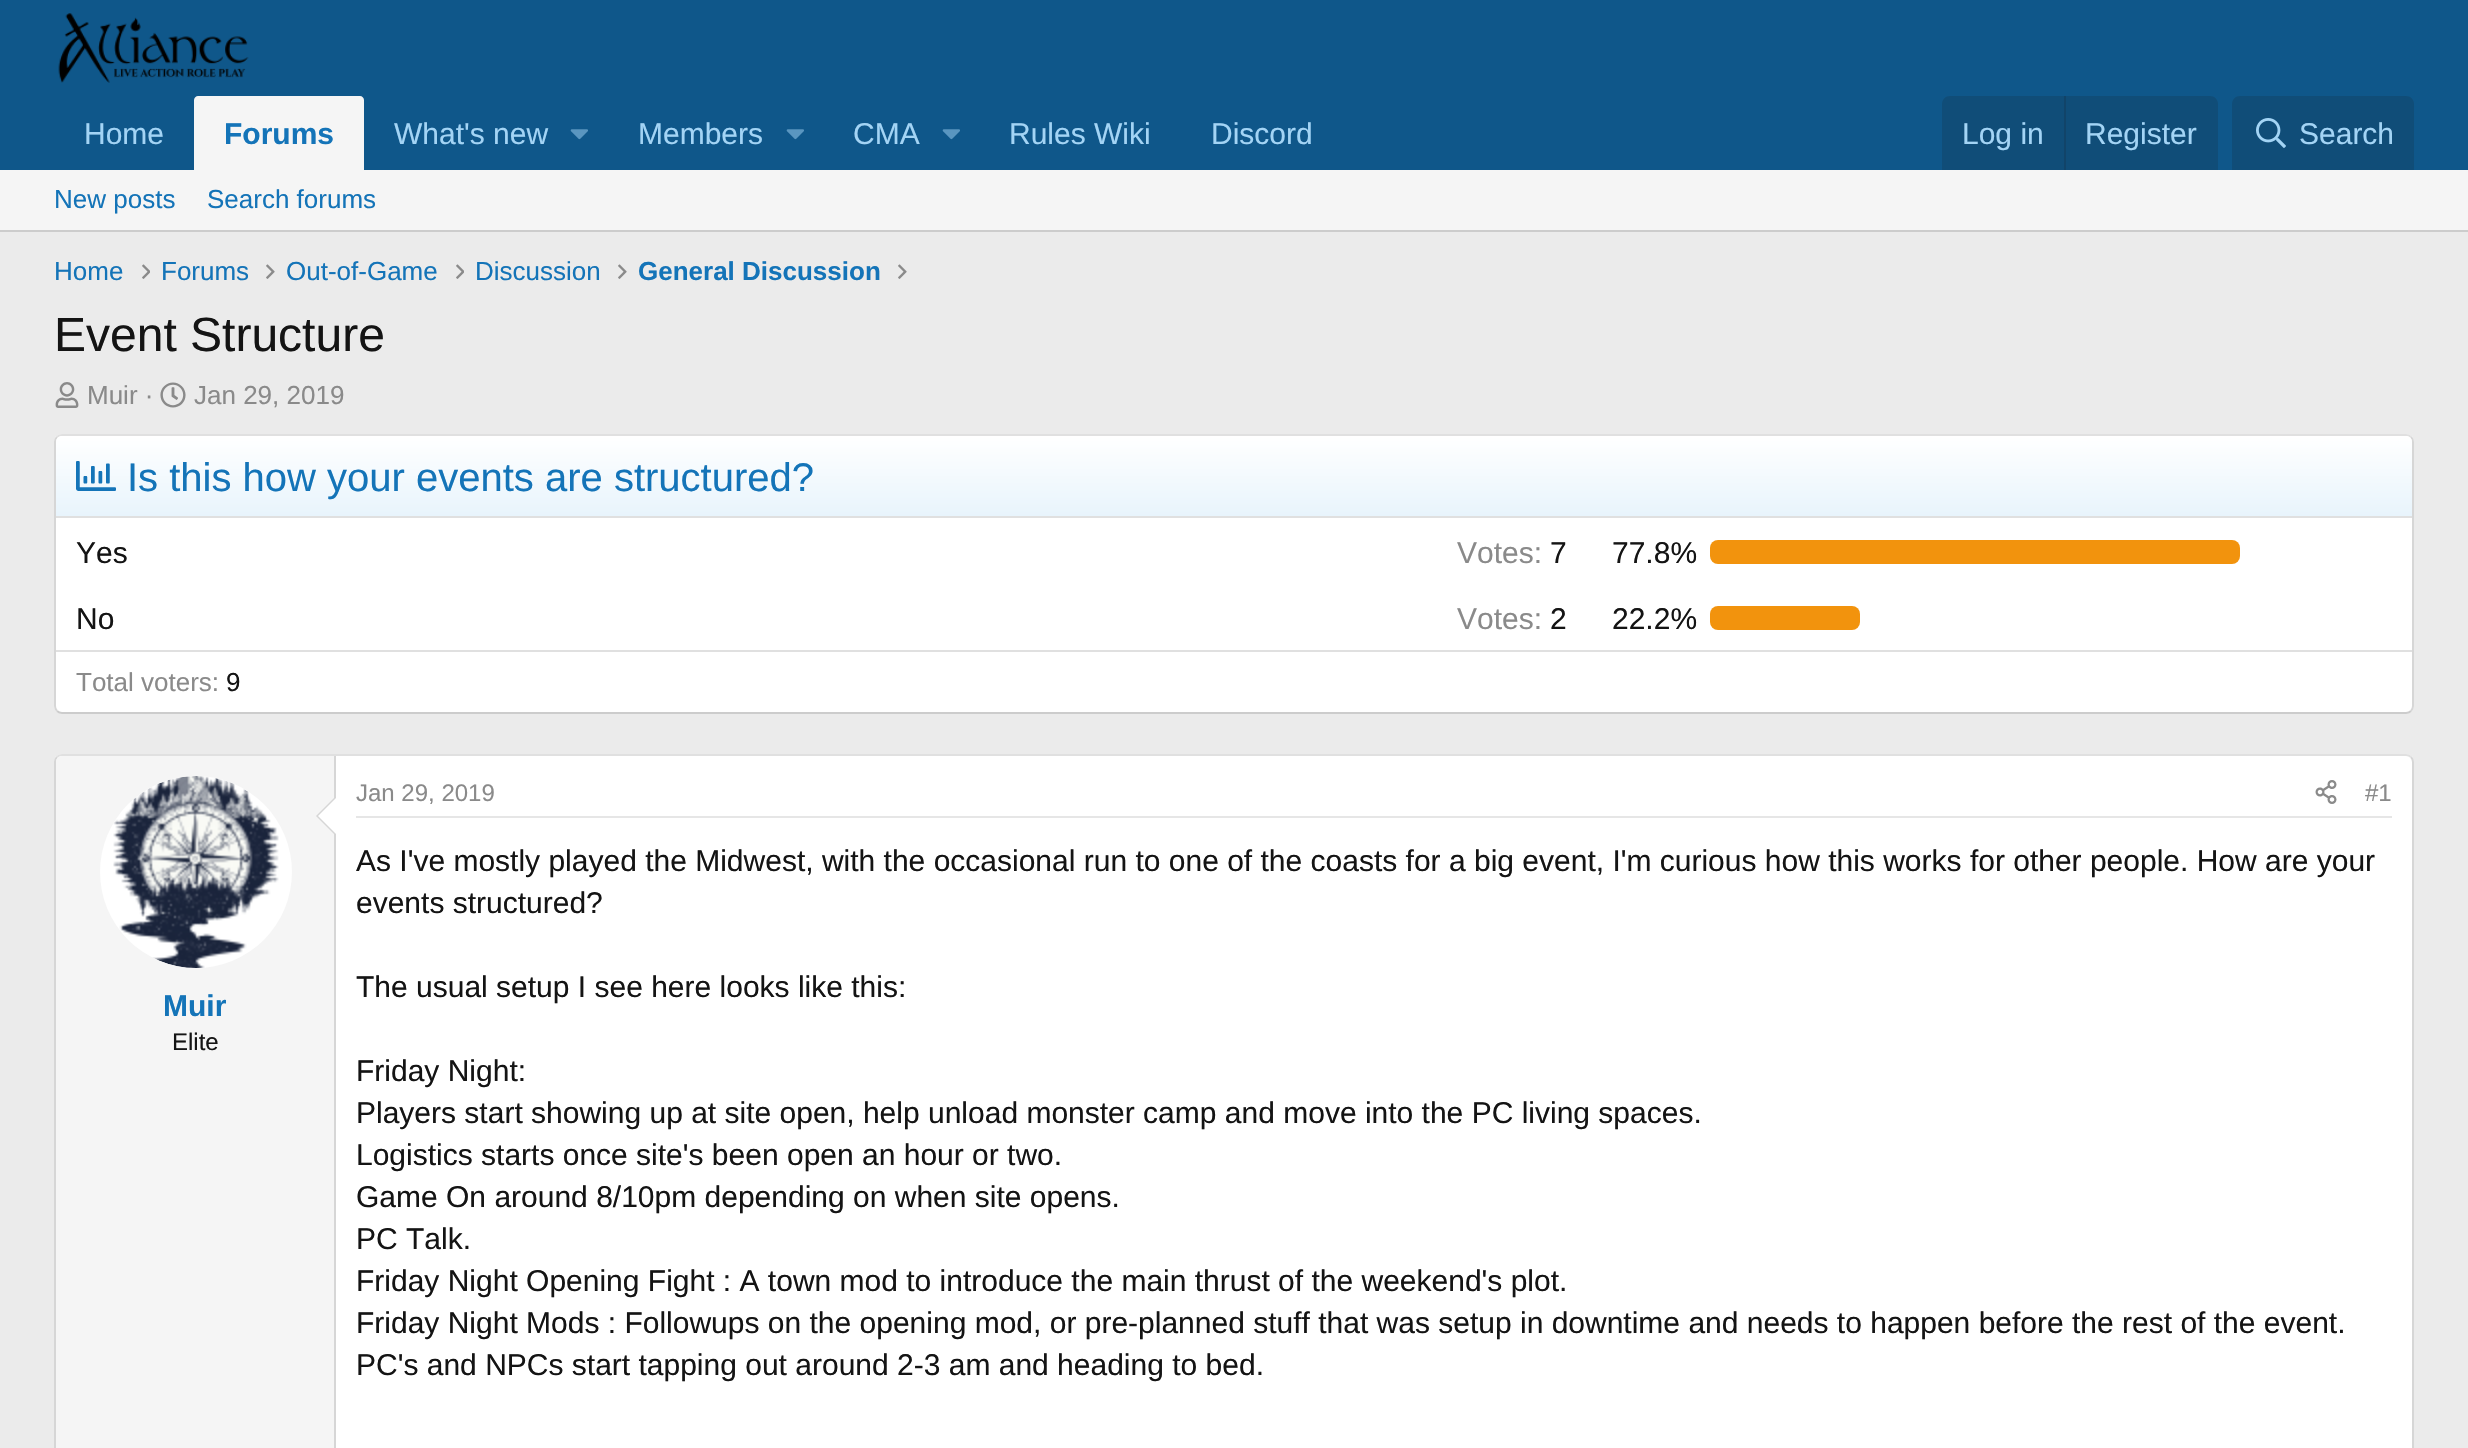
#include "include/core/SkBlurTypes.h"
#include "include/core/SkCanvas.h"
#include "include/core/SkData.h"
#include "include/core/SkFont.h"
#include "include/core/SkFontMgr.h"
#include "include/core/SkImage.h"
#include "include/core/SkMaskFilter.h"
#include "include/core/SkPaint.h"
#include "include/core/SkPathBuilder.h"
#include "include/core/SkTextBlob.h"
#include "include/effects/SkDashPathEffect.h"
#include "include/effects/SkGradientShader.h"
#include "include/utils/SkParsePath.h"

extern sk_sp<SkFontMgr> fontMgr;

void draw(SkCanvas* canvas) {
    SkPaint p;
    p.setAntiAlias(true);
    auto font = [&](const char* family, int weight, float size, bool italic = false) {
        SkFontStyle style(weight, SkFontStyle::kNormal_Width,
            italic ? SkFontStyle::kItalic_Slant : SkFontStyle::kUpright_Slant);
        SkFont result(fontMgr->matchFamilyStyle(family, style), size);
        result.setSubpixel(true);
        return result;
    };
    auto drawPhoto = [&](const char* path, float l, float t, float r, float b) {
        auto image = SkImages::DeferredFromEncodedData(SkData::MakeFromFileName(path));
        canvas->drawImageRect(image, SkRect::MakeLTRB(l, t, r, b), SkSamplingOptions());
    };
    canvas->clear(0xFFEBEBEB);
    p.setColor(0xFF0F578A);
    canvas->drawRect(SkRect::MakeLTRB(0, 0, 2468, 170), p);
    drawPhoto("media/1.png", 58, 13, 249, 83);
    auto font1 = font("Liberation Sans", 400, 30);
    p.setColor(0xFFA3D4F5);
    canvas->drawString("Home", 84, 144, font1, p);
    p.setColor(0xFFF5F5F5);
    canvas->drawPath(SkPathBuilder().moveTo(198, 96).lineTo(360, 96).cubicTo(362, 96, 364, 98, 364, 100).lineTo(364, 170).lineTo(194, 170).lineTo(194, 100).cubicTo(194, 98, 196, 96, 198, 96).close().detach(), p);
    auto font2 = font("Liberation Sans", 700, 30);
    p.setColor(0xFF1474B8);
    canvas->drawString("Forums", 224, 144, font2, p);
    p.setColor(0xFFA3D4F5);
    canvas->drawString("What's new", 394, 144, font1, p);
    drawPhoto("media/2.png", 570, 129, 588, 140);
    canvas->drawString("Members", 638, 144, font1, p);
    drawPhoto("media/2.png", 786, 129, 804, 140);
    canvas->drawString("CMA", 853, 144, font1, p);
    drawPhoto("media/2.png", 942, 129, 960, 140);
    canvas->drawString("Rules Wiki", 1009, 144, font1, p);
    canvas->drawString("Discord", 1211, 144, font1, p);
    p.setColor(0xFF104D78);
    canvas->drawPath(SkPathBuilder().moveTo(1950, 96).lineTo(2210, 96).cubicTo(2214.5f, 96, 2218, 99.5f, 2218, 104).lineTo(2218, 170).lineTo(1942, 170).lineTo(1942, 104).cubicTo(1942, 99.5f, 1945.5f, 96, 1950, 96).close().detach(), p);
    p.setColor(0xFFA3D4F5);
    canvas->drawString("Log in", 1962, 144, font1, p);
    p.setColor(0xFF114469);
    canvas->drawRect(SkRect::MakeLTRB(2064, 96, 2066, 170), p);
    p.setColor(0xFFA3D4F5);
    canvas->drawString("Register", 2085, 144, font1, p);
    p.setColor(0xFF104D78);
    canvas->drawPath(SkPathBuilder().moveTo(2240, 96).lineTo(2406, 96).cubicTo(2410.5f, 96, 2414, 99.5f, 2414, 104).lineTo(2414, 170).lineTo(2232, 170).lineTo(2232, 104).cubicTo(2232, 99.5f, 2235.5f, 96, 2240, 96).close().detach(), p);
    drawPhoto("media/3.png", 2256, 118, 2286, 148);
    p.setColor(0xFFA3D4F5);
    canvas->drawString("Search", 2299, 144, font1, p);
    p.setColor(0xFFF5F5F5);
    canvas->drawRect(SkRect::MakeLTRB(0, 170, 2468, 230), p);
    p.setColor(0xFFCCCCCC);
    canvas->drawRect(SkRect::MakeLTRB(0, 230, 2468, 232), p);
    auto font3 = font("Liberation Sans", 400, 26);
    p.setColor(0xFF1474B8);
    {
        const struct { const char* s; float x, y; } items[] = {
            {"New posts", 54, 208},
            {"Search forums", 207, 208},
            {"Home", 54, 280},
        };
        for (auto [s, x, y] : items) {
            canvas->drawString(s, x, y, font3, p);
        }
    }
    drawPhoto("media/4.png", 142, 264, 150, 279);
    canvas->drawString("Forums", 161, 280, font3, p);
    drawPhoto("media/5.png", 266, 264, 275, 279);
    canvas->drawString("Out-of-Game", 286, 280, font3, p);
    drawPhoto("media/4.png", 456, 264, 464, 279);
    canvas->drawString("Discussion", 475, 280, font3, p);
    drawPhoto("media/5.png", 618, 264, 627, 279);
    auto font4 = font("Liberation Sans", 700, 26);
    canvas->drawString("General Discussion", 638, 280, font4, p);
    drawPhoto("media/5.png", 898, 264, 907, 279);
    auto font5 = font("Liberation Sans", 400, 48);
    p.setColor(0xFF141414);
    canvas->drawString("Event Structure", 54, 351, font5, p);
    drawPhoto("media/6.png", 55, 382, 79, 408);
    p.setColor(0xFF8A8A8A);
    canvas->drawString("Muir ·", 87, 404, font3, p);
    drawPhoto("media/7.png", 160, 382, 186, 408);
    canvas->drawString("Jan 29, 2019", 194, 404, font3, p);
    p.setColor(0xFFFFFFFF);
    canvas->drawRoundRect(SkRect::MakeLTRB(54, 434, 2414, 714), 8, 8, p);
    p.setStyle(SkPaint::kStroke_Style);
    p.setStrokeWidth(2);
    p.setColor(0xFFE0E0E0);
    canvas->drawPath(SkPathBuilder().moveTo(57, 437).cubicTo(58.5f, 435.5f, 60, 435, 62, 435).lineTo(2406, 435).cubicTo(2408, 435, 2409.5f, 435.5f, 2411, 437).detach(), p);
    p.setColor(0xFFD6D6D6);
    canvas->drawPath(SkPathBuilder().moveTo(2411, 437).cubicTo(2412.5f, 438.5f, 2413, 440, 2413, 442).lineTo(2413, 706).cubicTo(2413, 708, 2412.5f, 709.5f, 2411, 711).detach(), p);
    p.setColor(0xFFCCCCCC);
    canvas->drawPath(SkPathBuilder().moveTo(2411, 711).cubicTo(2409.5f, 712.5f, 2408, 713, 2406, 713).lineTo(62, 713).cubicTo(60, 713, 58.5f, 712.5f, 57, 711).detach(), p);
    p.setColor(0xFFD6D6D6);
    canvas->drawPath(SkPathBuilder().moveTo(57, 711).cubicTo(55.5f, 709.5f, 55, 708, 55, 706).lineTo(55, 442).cubicTo(55, 440, 55.5f, 438.5f, 57, 437).detach(), p);
    p.setStyle(SkPaint::kFill_Style);
    {
        const SkColor colors[] = {0xFFE8F4FC, 0xFFFFFFFF};
        const float stops[] = {0, 1};
        const SkPoint ends[] = {{1234, 516}, {1234, 436}};
        p.setShader(SkGradientShader::MakeLinear(ends, colors, stops, 2, SkTileMode::kClamp));
        p.setAlpha(255);
    }
    canvas->drawPath(SkPathBuilder().moveTo(62, 436).lineTo(2406, 436).cubicTo(2409.5f, 436, 2412, 438.5f, 2412, 442).lineTo(2412, 516).lineTo(56, 516).lineTo(56, 442).cubicTo(56, 438.5f, 58.5f, 436, 62, 436).close().detach(), p);
    p.setShader(nullptr);
    p.setColor(0xFFE0E0E0);
    canvas->drawRect(SkRect::MakeLTRB(56, 516, 2412, 518), p);
    drawPhoto("media/8.png", 76, 461, 116, 491);
    auto font6 = font("Liberation Sans", 400, 40);
    p.setColor(0xFF1474B8);
    canvas->drawString("Is this how your events are structured?", 127, 491, font6, p);
    p.setColor(0xFF141414);
    canvas->drawString("Yes", 76, 563, font1, p);
    p.setColor(0xFF8A8A8A);
    canvas->drawString("Votes:", 1457, 563, font1, p);
    p.setColor(0xFF141414);
    canvas->drawString("7", 1550, 563, font1, p);
    canvas->drawString("77.8%", 1612, 563, font1, p);
    p.setColor(0xFFF2930D);
    canvas->drawRoundRect(SkRect::MakeLTRB(1710, 540, 2240, 564), 8, 8, p);
    p.setColor(0xFF141414);
    canvas->drawString("No", 76, 629, font1, p);
    p.setColor(0xFF8A8A8A);
    canvas->drawString("Votes:", 1457, 629, font1, p);
    p.setColor(0xFF141414);
    canvas->drawString("2", 1550, 629, font1, p);
    canvas->drawString("22.2%", 1612, 629, font1, p);
    p.setColor(0xFFF2930D);
    canvas->drawRoundRect(SkRect::MakeLTRB(1710, 606, 1860, 630), 8, 8, p);
    p.setColor(0xFFE0E0E0);
    canvas->drawRect(SkRect::MakeLTRB(56, 650, 2412, 652), p);
    p.setColor(0xFF8A8A8A);
    canvas->drawString("Total voters:", 76, 691, font3, p);
    p.setColor(0xFF141414);
    canvas->drawString("9", 226, 691, font3, p);
    p.setColor(0xFFFFFFFF);
    canvas->drawRoundRect(SkRect::MakeLTRB(54, 754, 2414, 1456), 8, 8, p);
    p.setStyle(SkPaint::kStroke_Style);
    p.setColor(0xFFE0E0E0);
    canvas->drawPath(SkPathBuilder().moveTo(57, 757).cubicTo(58.5f, 755.5f, 60, 755, 62, 755).lineTo(2406, 755).cubicTo(2408, 755, 2409.5f, 755.5f, 2411, 757).detach(), p);
    p.setColor(0xFFD6D6D6);
    canvas->drawPath(SkPathBuilder().moveTo(2411, 757).cubicTo(2412.5f, 758.5f, 2413, 760, 2413, 762).lineTo(2413, 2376).cubicTo(2413, 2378, 2412.5f, 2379.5f, 2411, 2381).detach(), p);
    canvas->drawPath(SkPathBuilder().moveTo(57, 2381).cubicTo(55.5f, 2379.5f, 55, 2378, 55, 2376).lineTo(55, 762).cubicTo(55, 760, 55.5f, 758.5f, 57, 757).detach(), p);
    p.setStyle(SkPaint::kFill_Style);
    p.setColor(0xFFF5F5F5);
    canvas->drawPath(SkPathBuilder().moveTo(62, 756).lineTo(336, 756).lineTo(336, 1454).lineTo(62, 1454).cubicTo(58.5f, 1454, 56, 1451.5f, 56, 1448).lineTo(56, 762).cubicTo(56, 758.5f, 58.5f, 756, 62, 756).close().detach(), p);
    p.setColor(0xFFD6D6D6);
    canvas->drawRect(SkRect::MakeLTRB(334, 756, 336, 1448), p);
    p.setColor(0xFFFFFFFF);
    canvas->drawCircle(196, 872, 96, p);
    drawPhoto("media/9.png", 113, 776, 279, 968);
    p.setColor(0xFFD6D6D6);
    canvas->drawPath(SkPathBuilder().moveTo(336, 796).lineTo(336, 836).lineTo(316, 816).close().detach(), p);
    p.setColor(0xFFFFFFFF);
    canvas->drawPath(SkPathBuilder().moveTo(336, 798).lineTo(336, 834).lineTo(318, 816).close().detach(), p);
    p.setColor(0xFF1474B8);
    canvas->drawString("Muir", 163, 1016, font2, p);
    auto font7 = font("Liberation Sans", 400, 24);
    p.setColor(0xFF141414);
    canvas->drawString("Elite", 172, 1050, font7, p);
    p.setColor(0xFFE6E6E6);
    canvas->drawRect(SkRect::MakeLTRB(356, 816, 2392, 818), p);
    p.setColor(0xFF8A8A8A);
    canvas->drawString("Jan 29, 2019", 356, 801, font7, p);
    drawPhoto("media/10.png", 2315, 780, 2337, 804);
    canvas->drawString("#1", 2365, 801, font7, p);
    p.setColor(0xFF141414);
    {
        const struct { const char* s; float x, y; } items[] = {
            {"As I've mostly played the Midwest, with the occasional run to one of the coasts for a big event, I'm curious how this works for other people. How are your", 356, 871},
            {"events structured?", 356, 913},
            {"The usual setup I see here looks like this:", 356, 997},
            {"Friday Night:", 356, 1081},
            {"Players start showing up at site open, help unload monster camp and move into the PC living spaces.", 356, 1123},
            {"Logistics starts once site's been open an hour or two.", 356, 1165},
            {"Game On around 8/10pm depending on when site opens.", 356, 1207},
            {"PC Talk.", 356, 1249},
            {"Friday Night Opening Fight : A town mod to introduce the main thrust of the weekend's plot.", 356, 1291},
            {"Friday Night Mods : Followups on the opening mod, or pre-planned stuff that was setup in downtime and needs to happen before the rest of the event.", 356, 1333},
            {"PC's and NPCs start tapping out around 2-3 am and heading to bed.", 356, 1375},
        };
        for (auto [s, x, y] : items) {
            canvas->drawString(s, x, y, font1, p);
        }
    }
}
